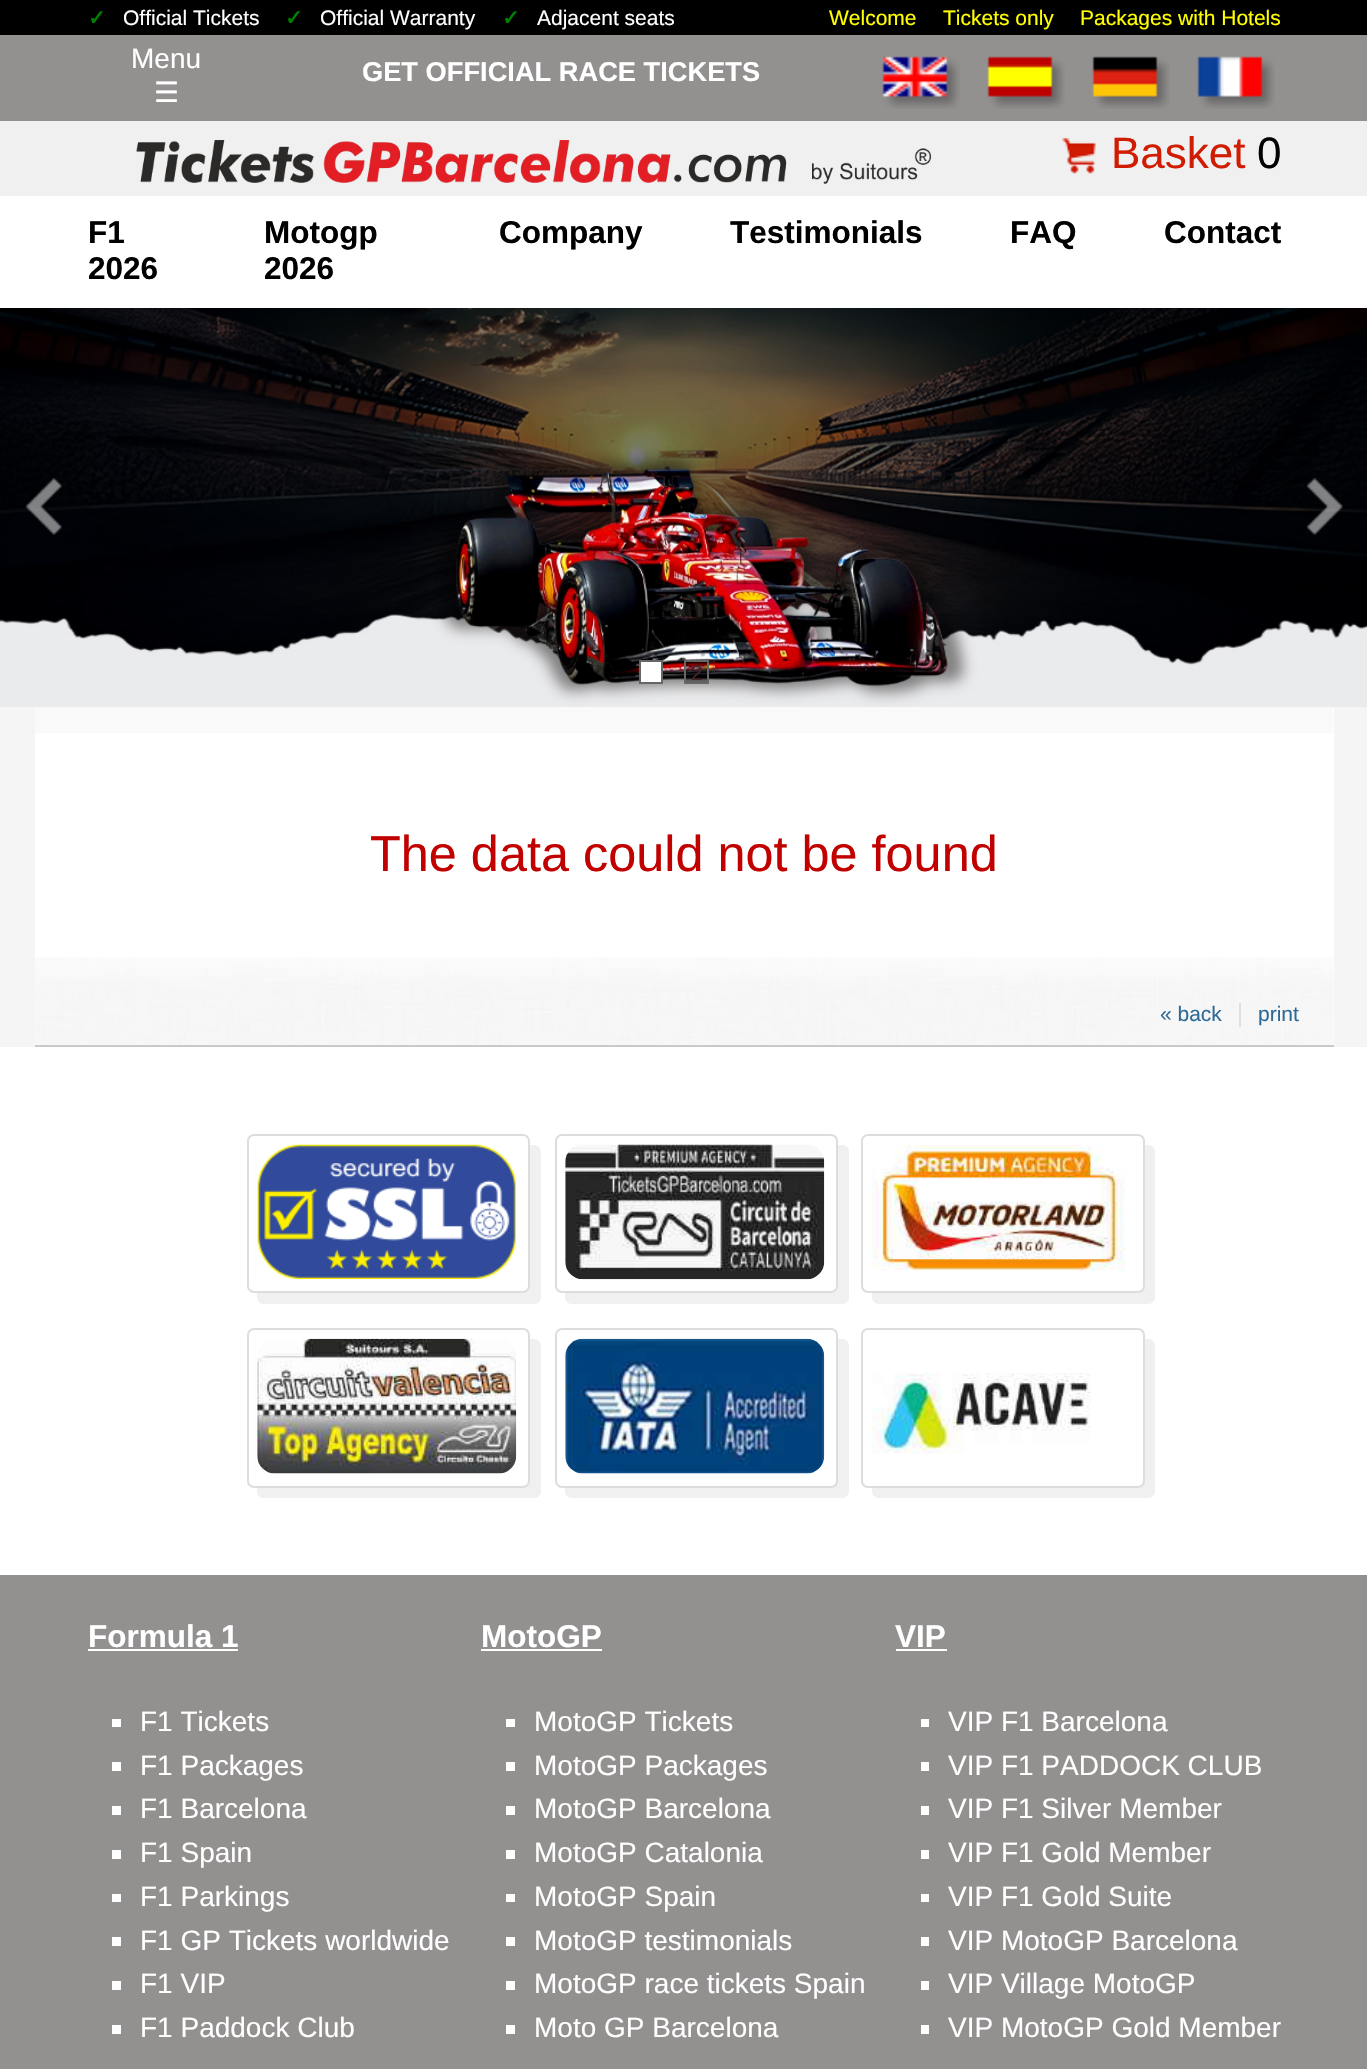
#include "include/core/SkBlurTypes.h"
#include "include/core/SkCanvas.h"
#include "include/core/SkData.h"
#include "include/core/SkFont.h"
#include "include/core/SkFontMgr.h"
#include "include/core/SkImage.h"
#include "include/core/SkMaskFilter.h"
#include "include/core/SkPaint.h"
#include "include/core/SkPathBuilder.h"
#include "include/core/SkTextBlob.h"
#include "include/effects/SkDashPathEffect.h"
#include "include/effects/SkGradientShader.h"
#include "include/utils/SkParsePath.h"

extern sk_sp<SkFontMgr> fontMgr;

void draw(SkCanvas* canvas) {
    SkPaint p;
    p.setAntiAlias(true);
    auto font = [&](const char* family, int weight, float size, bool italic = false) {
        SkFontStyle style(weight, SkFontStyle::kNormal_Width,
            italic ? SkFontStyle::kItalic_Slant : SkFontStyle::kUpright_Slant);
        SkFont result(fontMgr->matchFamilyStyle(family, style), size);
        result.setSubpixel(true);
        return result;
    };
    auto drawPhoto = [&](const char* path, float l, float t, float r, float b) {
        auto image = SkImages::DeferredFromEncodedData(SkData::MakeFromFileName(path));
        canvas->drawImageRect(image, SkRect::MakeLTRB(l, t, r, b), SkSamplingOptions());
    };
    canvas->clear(0xFFF5F5F5);
    p.setColor(0xFF000000);
    canvas->drawRect(SkRect::MakeLTRB(0, 0, 1367, 35), p);
    auto font1 = font("DejaVu Sans", 700, 21);
    p.setColor(0xFF008000);
    canvas->drawString("✓", 88, 25, font1, p);
    auto font2 = font("Liberation Sans", 400, 21);
    p.setColor(0xFFFFFFFF);
    canvas->drawString("Official Tickets", 123, 25, font2, p);
    p.setColor(0xFF008000);
    canvas->drawString("✓", 285, 25, font1, p);
    p.setColor(0xFFFFFFFF);
    canvas->drawString("Official Warranty", 320, 25, font2, p);
    p.setColor(0xFF008000);
    canvas->drawString("✓", 502, 25, font1, p);
    p.setColor(0xFFFFFFFF);
    canvas->drawString("Adjacent seats", 537, 25, font2, p);
    p.setColor(0xFFFFFF00);
    {
        const struct { const char* s; float x, y; } items[] = {
            {"Welcome", 829, 25},
            {"Tickets only", 943, 25},
            {"Packages with Hotels", 1080, 25},
        };
        for (auto [s, x, y] : items) {
            canvas->drawString(s, x, y, font2, p);
        }
    }
    p.setColor(0xFF939090);
    canvas->drawRect(SkRect::MakeLTRB(0, 35, 1367, 121), p);
    auto font3 = font("Liberation Sans", 400, 28);
    p.setColor(0xFFFFFFFF);
    canvas->drawString("Menu", 131, 68, font3, p);
    auto font4 = font("DejaVu Sans", 400, 28);
    canvas->drawString("☰", 154, 102, font4, p);
    auto font5 = font("Liberation Sans", 700, 27.25f);
    canvas->drawString("GET OFFICIAL RACE TICKETS", 362, 81, font5, p);
    drawPhoto("media/1.png", 882, 56, 960, 109);
    drawPhoto("media/2.png", 987, 56, 1065, 109);
    drawPhoto("media/3.png", 1092, 56, 1170, 109);
    drawPhoto("media/4.png", 1197, 56, 1275, 109);
    p.setColor(0xFFF0F0F0);
    canvas->drawRect(SkRect::MakeLTRB(0, 121, 1367, 196), p);
    drawPhoto("media/5.png", 136, 140, 931, 184);
    drawPhoto("media/6.png", 1062, 138, 1096, 174);
    auto font6 = font("Liberation Sans", 400, 44);
    p.setColor(0xFFD01C02);
    canvas->drawString("Basket", 1111, 168, font6, p);
    p.setColor(0xFF000000);
    canvas->drawString("0", 1257, 168, font6, p);
    p.setColor(0xFFFFFFFF);
    canvas->drawRect(SkRect::MakeLTRB(0, 196, 1367, 308), p);
    auto font7 = font("Liberation Sans", 700, 31.5f);
    p.setColor(0xFF000000);
    {
        const struct { const char* s; float x, y; } items[] = {
            {"F1", 88, 243},
            {"2026", 88, 279},
            {"Motogp", 264, 243},
            {"2026", 264, 279},
            {"Company", 499, 243},
            {"Testimonials", 730, 243},
            {"FAQ", 1010, 243},
            {"Contact", 1164, 243},
        };
        for (auto [s, x, y] : items) {
            canvas->drawString(s, x, y, font7, p);
        }
    }
    drawPhoto("media/7.png", 0, 308, 1367, 707);
    p.setColor(0x33000000);
    canvas->drawRect(SkRect::MakeLTRB(0, 427, 91, 513), p);
    drawPhoto("media/8.png", 26, 478, 62, 535);
    canvas->drawRect(SkRect::MakeLTRB(1278, 427, 1367, 555), p);
    drawPhoto("media/9.png", 1306, 478, 1343, 535);
    p.setColor(0xFFFFFFFF);
    canvas->drawRect(SkRect::MakeLTRB(640, 661, 662, 683), p);
    p.setStyle(SkPaint::kStroke_Style);
    p.setStrokeWidth(2);
    p.setColor(0xFF666666);
    canvas->drawRect(SkRect::MakeLTRB(640, 661, 662, 683), p);
    p.setStyle(SkPaint::kFill_Style);
    p.setColor(0x66000000);
    canvas->drawRect(SkRect::MakeLTRB(685, 661, 708, 683), p);
    p.setStyle(SkPaint::kStroke_Style);
    p.setColor(0xFF666666);
    canvas->drawRect(SkRect::MakeLTRB(685, 661, 708, 683), p);
    p.setStyle(SkPaint::kFill_Style);
    p.setColor(0xFF432427);
    canvas->drawString("2", 691, 680, font2, p);
    p.setColor(0xFFFFFFFF);
    canvas->drawRect(SkRect::MakeLTRB(35, 707, 1334, 1045), p);
    drawPhoto("media/10.png", 35, 957, 1334, 1045);
    p.setColor(0xFFC9C9C9);
    canvas->drawRect(SkRect::MakeLTRB(35, 1045, 1334, 1047), p);
    p.setColor(0xFFF9F9F9);
    canvas->drawRect(SkRect::MakeLTRB(35, 707, 1333, 733), p);
    auto font8 = font("Liberation Sans", 400, 50.4f);
    p.setColor(0xFFC10000);
    canvas->drawString("The data could not be found", 370, 871, font8, p);
    p.setColor(0xFF2E6A97);
    canvas->drawString("« back", 1160, 1021, font2, p);
    canvas->drawString("print", 1258, 1021, font2, p);
    p.setColor(0xFFE0E0E0);
    canvas->drawRect(SkRect::MakeLTRB(1239, 1003, 1241, 1027), p);
    p.setColor(0xFFFFFFFF);
    canvas->drawRect(SkRect::MakeLTRB(0, 1047, 1367, 1575), p);
    p.setColor(0xFFF0F0F0);
    canvas->drawPath(SkPathBuilder().moveTo(257, 1293).lineTo(257, 1297).cubicTo(257, 1301, 260, 1304, 264, 1304).lineTo(534, 1304).cubicTo(538, 1304, 541, 1301, 541, 1297).lineTo(541, 1152).cubicTo(541, 1148, 538, 1145, 534, 1145).lineTo(530, 1145).lineTo(530, 1286).cubicTo(530, 1290, 527, 1293, 523, 1293).close().detach(), p);
    p.setStyle(SkPaint::kStroke_Style);
    p.setColor(0xFFDDDDDD);
    canvas->drawRoundRect(SkRect::MakeLTRB(248, 1135, 529, 1292), 6, 6, p);
    drawPhoto("media/11.png", 257, 1144, 517, 1280);
    p.setStyle(SkPaint::kFill_Style);
    p.setColor(0xFFF0F0F0);
    canvas->drawPath(SkPathBuilder().moveTo(565, 1293).lineTo(565, 1297).cubicTo(565, 1301, 568, 1304, 572, 1304).lineTo(842, 1304).cubicTo(846, 1304, 849, 1301, 849, 1297).lineTo(849, 1152).cubicTo(849, 1148, 846, 1145, 842, 1145).lineTo(838, 1145).lineTo(838, 1286).cubicTo(838, 1290, 835, 1293, 831, 1293).close().detach(), p);
    p.setStyle(SkPaint::kStroke_Style);
    p.setColor(0xFFDDDDDD);
    canvas->drawRoundRect(SkRect::MakeLTRB(556, 1135, 837, 1292), 6, 6, p);
    drawPhoto("media/12.png", 565, 1144, 825, 1280);
    p.setStyle(SkPaint::kFill_Style);
    p.setColor(0xFFF0F0F0);
    canvas->drawPath(SkPathBuilder().moveTo(872, 1293).lineTo(872, 1297).cubicTo(872, 1301, 875, 1304, 879, 1304).lineTo(1148, 1304).cubicTo(1152, 1304, 1155, 1301, 1155, 1297).lineTo(1155, 1152).cubicTo(1155, 1148, 1152, 1145, 1148, 1145).lineTo(1144, 1145).lineTo(1144, 1286).cubicTo(1144, 1290, 1141, 1293, 1138, 1293).close().detach(), p);
    p.setStyle(SkPaint::kStroke_Style);
    p.setColor(0xFFDDDDDD);
    canvas->drawRoundRect(SkRect::MakeLTRB(862, 1135, 1144, 1292), 6, 6, p);
    drawPhoto("media/13.png", 871, 1144, 1126, 1271);
    p.setStyle(SkPaint::kFill_Style);
    p.setColor(0xFFF0F0F0);
    canvas->drawPath(SkPathBuilder().moveTo(257, 1488).lineTo(257, 1491).cubicTo(257, 1495, 260, 1498, 264, 1498).lineTo(534, 1498).cubicTo(538, 1498, 541, 1495, 541, 1491).lineTo(541, 1346).cubicTo(541, 1342, 538, 1339, 534, 1339).lineTo(530, 1339).lineTo(530, 1480).cubicTo(530, 1484, 527, 1488, 523, 1488).close().detach(), p);
    p.setStyle(SkPaint::kStroke_Style);
    p.setColor(0xFFDDDDDD);
    canvas->drawRoundRect(SkRect::MakeLTRB(248, 1329, 529, 1487), 6, 6, p);
    drawPhoto("media/14.png", 257, 1338, 517, 1474);
    p.setStyle(SkPaint::kFill_Style);
    p.setColor(0xFFF0F0F0);
    canvas->drawPath(SkPathBuilder().moveTo(565, 1488).lineTo(565, 1491).cubicTo(565, 1495, 568, 1498, 572, 1498).lineTo(842, 1498).cubicTo(846, 1498, 849, 1495, 849, 1491).lineTo(849, 1346).cubicTo(849, 1342, 846, 1339, 842, 1339).lineTo(838, 1339).lineTo(838, 1480).cubicTo(838, 1484, 835, 1488, 831, 1488).close().detach(), p);
    p.setStyle(SkPaint::kStroke_Style);
    p.setColor(0xFFDDDDDD);
    canvas->drawRoundRect(SkRect::MakeLTRB(556, 1329, 837, 1487), 6, 6, p);
    drawPhoto("media/15.png", 565, 1338, 825, 1474);
    p.setStyle(SkPaint::kFill_Style);
    p.setColor(0xFFF0F0F0);
    canvas->drawPath(SkPathBuilder().moveTo(872, 1488).lineTo(872, 1491).cubicTo(872, 1495, 875, 1498, 879, 1498).lineTo(1148, 1498).cubicTo(1152, 1498, 1155, 1495, 1155, 1491).lineTo(1155, 1346).cubicTo(1155, 1342, 1152, 1339, 1148, 1339).lineTo(1144, 1339).lineTo(1144, 1480).cubicTo(1144, 1484, 1141, 1488, 1138, 1488).close().detach(), p);
    p.setStyle(SkPaint::kStroke_Style);
    p.setColor(0xFFDDDDDD);
    canvas->drawRoundRect(SkRect::MakeLTRB(862, 1329, 1144, 1487), 6, 6, p);
    drawPhoto("media/16.png", 871, 1373, 1091, 1454);
    p.setStyle(SkPaint::kFill_Style);
    p.setColor(0xFF939090);
    canvas->drawRect(SkRect::MakeLTRB(0, 1575, 1367, 2069), p);
    p.setColor(0xFFFFFFFF);
    canvas->drawString("Formula 1", 88, 1647, font7, p);
    canvas->drawRect(SkRect::MakeLTRB(88, 1649, 238, 1651), p);
    canvas->drawRect(SkRect::MakeLTRB(112, 1719, 121, 1727), p);
    canvas->drawString("F1 Tickets", 140, 1731, font3, p);
    canvas->drawRect(SkRect::MakeLTRB(112, 1762, 121, 1771), p);
    canvas->drawString("F1 Packages", 140, 1775, font3, p);
    canvas->drawRect(SkRect::MakeLTRB(112, 1806, 121, 1815), p);
    canvas->drawString("F1 Barcelona", 140, 1818, font3, p);
    canvas->drawRect(SkRect::MakeLTRB(112, 1850, 121, 1859), p);
    canvas->drawString("F1 Spain", 140, 1862, font3, p);
    canvas->drawRect(SkRect::MakeLTRB(112, 1894, 121, 1902), p);
    canvas->drawString("F1 Parkings", 140, 1906, font3, p);
    canvas->drawRect(SkRect::MakeLTRB(112, 1937, 121, 1946), p);
    canvas->drawString("F1 GP Tickets worldwide", 140, 1950, font3, p);
    canvas->drawRect(SkRect::MakeLTRB(112, 1981, 121, 1990), p);
    canvas->drawString("F1 VIP", 140, 1993, font3, p);
    canvas->drawRect(SkRect::MakeLTRB(112, 2025, 121, 2034), p);
    canvas->drawString("F1 Paddock Club", 140, 2037, font3, p);
    canvas->drawString("MotoGP", 481, 1647, font7, p);
    canvas->drawRect(SkRect::MakeLTRB(481, 1649, 602, 1651), p);
    canvas->drawRect(SkRect::MakeLTRB(506, 1719, 515, 1727), p);
    canvas->drawString("MotoGP Tickets", 534, 1731, font3, p);
    canvas->drawRect(SkRect::MakeLTRB(506, 1762, 515, 1771), p);
    canvas->drawString("MotoGP Packages", 534, 1775, font3, p);
    canvas->drawRect(SkRect::MakeLTRB(506, 1806, 515, 1815), p);
    canvas->drawString("MotoGP Barcelona", 534, 1818, font3, p);
    canvas->drawRect(SkRect::MakeLTRB(506, 1850, 515, 1859), p);
    canvas->drawString("MotoGP Catalonia", 534, 1862, font3, p);
    canvas->drawRect(SkRect::MakeLTRB(506, 1894, 515, 1902), p);
    canvas->drawString("MotoGP Spain", 534, 1906, font3, p);
    canvas->drawRect(SkRect::MakeLTRB(506, 1937, 515, 1946), p);
    canvas->drawString("MotoGP testimonials", 534, 1950, font3, p);
    canvas->drawRect(SkRect::MakeLTRB(506, 1981, 515, 1990), p);
    canvas->drawString("MotoGP race tickets Spain", 534, 1993, font3, p);
    canvas->drawRect(SkRect::MakeLTRB(506, 2025, 515, 2034), p);
    canvas->drawString("Moto GP Barcelona", 534, 2037, font3, p);
    canvas->drawString("VIP", 895, 1647, font7, p);
    canvas->drawRect(SkRect::MakeLTRB(896, 1649, 947, 1651), p);
    canvas->drawRect(SkRect::MakeLTRB(921, 1719, 929, 1727), p);
    canvas->drawString("VIP F1 Barcelona", 948, 1731, font3, p);
    canvas->drawRect(SkRect::MakeLTRB(921, 1762, 929, 1771), p);
    canvas->drawString("VIP F1 PADDOCK CLUB", 948, 1775, font3, p);
    canvas->drawRect(SkRect::MakeLTRB(921, 1806, 929, 1815), p);
    canvas->drawString("VIP F1 Silver Member", 948, 1818, font3, p);
    canvas->drawRect(SkRect::MakeLTRB(921, 1850, 929, 1859), p);
    canvas->drawString("VIP F1 Gold Member", 948, 1862, font3, p);
    canvas->drawRect(SkRect::MakeLTRB(921, 1894, 929, 1902), p);
    canvas->drawString("VIP F1 Gold Suite", 948, 1906, font3, p);
    canvas->drawRect(SkRect::MakeLTRB(921, 1937, 929, 1946), p);
    canvas->drawString("VIP MotoGP Barcelona", 948, 1950, font3, p);
    canvas->drawRect(SkRect::MakeLTRB(921, 1981, 929, 1990), p);
    canvas->drawString("VIP Village MotoGP", 948, 1993, font3, p);
    canvas->drawRect(SkRect::MakeLTRB(921, 2025, 929, 2034), p);
    canvas->drawString("VIP MotoGP Gold Member", 948, 2037, font3, p);
}
